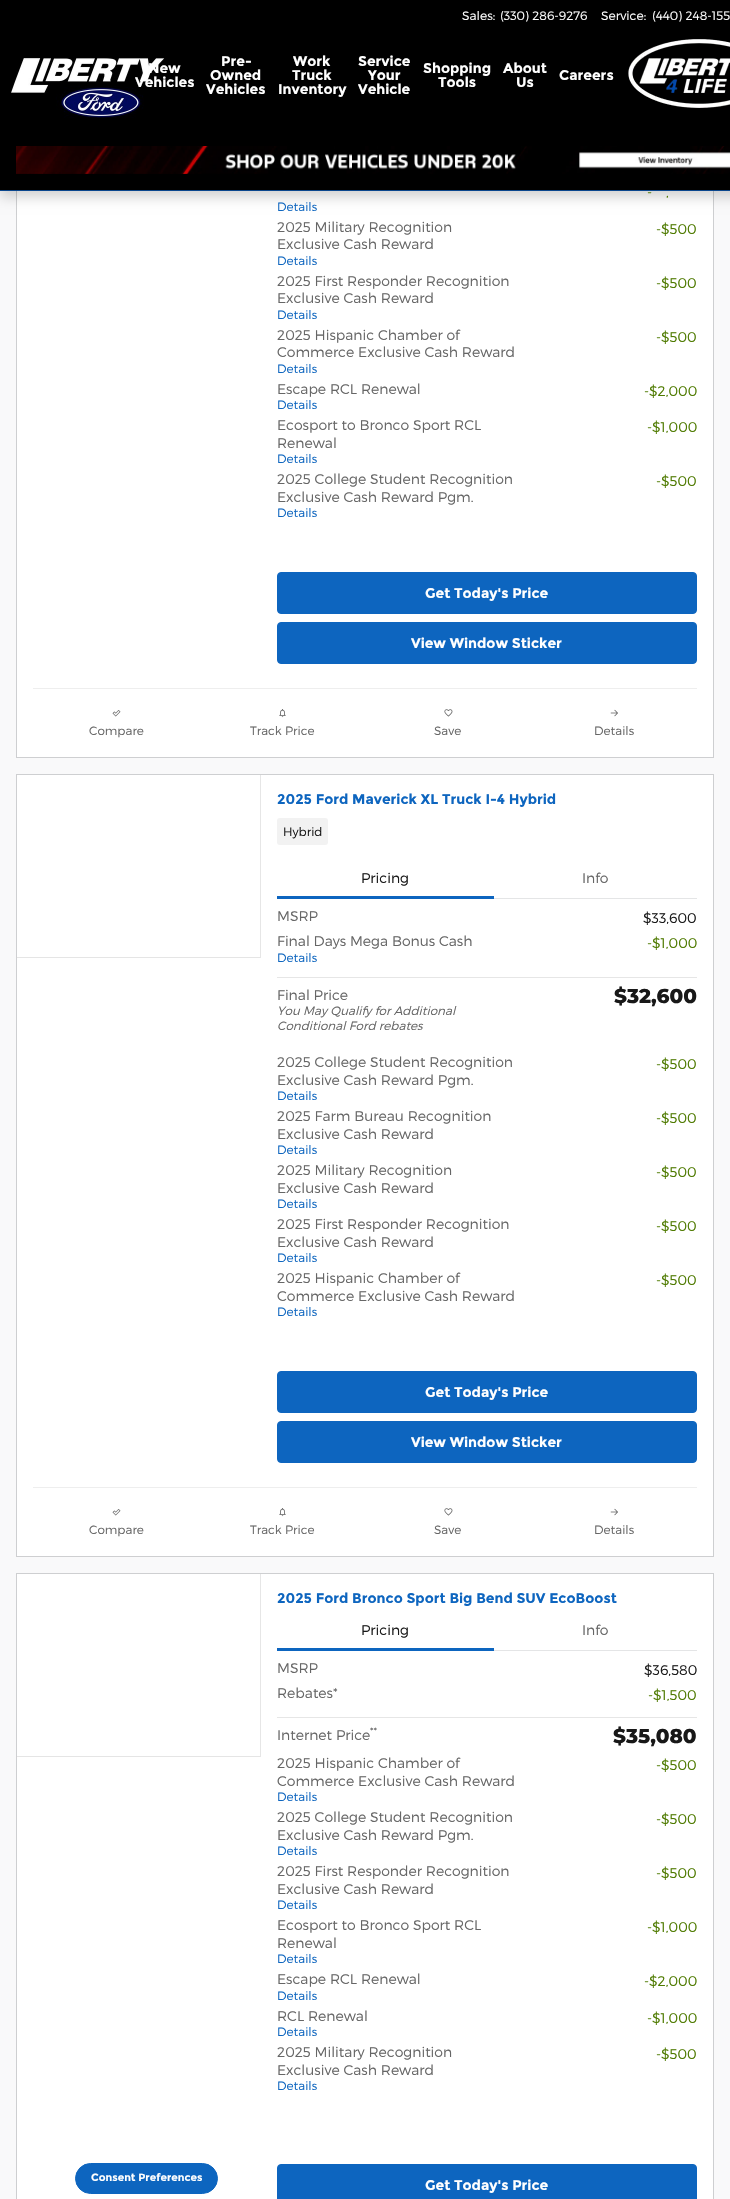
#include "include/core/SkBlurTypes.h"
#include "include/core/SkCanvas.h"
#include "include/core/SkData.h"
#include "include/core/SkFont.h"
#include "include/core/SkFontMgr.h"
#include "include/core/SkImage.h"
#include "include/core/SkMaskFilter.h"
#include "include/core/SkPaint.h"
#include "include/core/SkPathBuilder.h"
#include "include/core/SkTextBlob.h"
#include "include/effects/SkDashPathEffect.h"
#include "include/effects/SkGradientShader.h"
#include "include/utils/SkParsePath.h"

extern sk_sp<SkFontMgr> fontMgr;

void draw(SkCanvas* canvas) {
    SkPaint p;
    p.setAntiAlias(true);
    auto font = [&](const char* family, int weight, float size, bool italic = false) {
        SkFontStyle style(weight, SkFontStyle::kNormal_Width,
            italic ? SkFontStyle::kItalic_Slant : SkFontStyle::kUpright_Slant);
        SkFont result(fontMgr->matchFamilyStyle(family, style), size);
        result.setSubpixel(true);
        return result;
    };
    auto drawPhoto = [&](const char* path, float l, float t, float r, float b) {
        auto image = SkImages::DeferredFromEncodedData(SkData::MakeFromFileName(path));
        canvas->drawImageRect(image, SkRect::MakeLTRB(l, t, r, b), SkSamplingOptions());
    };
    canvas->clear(0xFFF9F9FA);
    p.setColor(0xFFFFFFFF);
    canvas->drawRect(SkRect::MakeLTRB(17, 191, 713, 757), p);
    p.setStyle(SkPaint::kStroke_Style);
    p.setStrokeWidth(1);
    p.setColor(0xFFCECFD1);
    canvas->drawRect(SkRect::MakeLTRB(16.5f, -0.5f, 713.5f, 757.5f), p);
    p.setStyle(SkPaint::kFill_Style);
    p.setColor(0x2E000000);
    p.setMaskFilter(SkMaskFilter::MakeBlur(kNormal_SkBlurStyle, 6));
    canvas->drawRect(SkRect::MakeLTRB(0, 6, 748, 197), p);
    p.setMaskFilter(nullptr);
    p.setColor(0xFF000000);
    canvas->drawRect(SkRect::MakeLTRB(0, 0, 730, 190), p);
    p.setColor(0xFF0A468D);
    canvas->drawRect(SkRect::MakeLTRB(0, 190, 730, 191), p);
    auto font1 = font("Montserrat", 300, 12.25f);
    p.setColor(0xFFFFFFFF);
    {
        const struct { const char* s; float x, y; } items[] = {
            {"Sales:", 462, 20},
            {"(330) 286-9276", 500, 20},
            {"Service:", 601, 20},
            {"(440) 248-155", 652, 20},
        };
        for (auto [s, x, y] : items) {
            canvas->drawString(s, x, y, font1, p);
        }
    }
    drawPhoto("media/1.png", 11, 58, 165, 118);
    auto font2 = font("Montserrat", 700, 14);
    {
        const struct { const char* s; float x, y; } items[] = {
            {"New", 148, 73},
            {"Vehicles", 135, 87},
            {"Pre-", 221, 66},
            {"Owned", 210, 80},
            {"Vehicles", 206, 94},
            {"Work", 293, 66},
            {"Truck", 292, 80},
            {"Inventory", 278, 94},
            {"Service", 358, 66},
            {"Your", 368, 80},
            {"Vehicle", 358, 94},
            {"Shopping", 423, 73},
            {"Tools", 438, 87},
            {"About", 503, 73},
            {"Us", 516, 87},
            {"Careers", 559, 80},
        };
        for (auto [s, x, y] : items) {
            canvas->drawString(s, x, y, font2, p);
        }
    }
    drawPhoto("media/2.png", 628, 39, 730, 108);
    drawPhoto("media/3.png", 16, 146, 730, 174);
    auto font3 = font("Montserrat", 300, 14);
    p.setColor(0xFF4E7A00);
    canvas->drawString("-", 647, 197, font3, p);
    canvas->drawString(",", 666, 197, font3, p);
    auto font4 = font("Montserrat", 300, 12);
    p.setColor(0xFF0D65BF);
    canvas->drawString("Details", 277, 211, font4, p);
    p.setColor(0xFF666666);
    canvas->drawString("2025 Military Recognition", 277, 232, font3, p);
    canvas->drawString("Exclusive Cash Reward", 277, 249, font3, p);
    p.setColor(0xFF0D65BF);
    canvas->drawString("Details", 277, 265, font4, p);
    p.setColor(0xFF4E7A00);
    canvas->drawString("-$500", 656, 234, font3, p);
    p.setColor(0xFF666666);
    canvas->drawString("2025 First Responder Recognition", 277, 286, font3, p);
    canvas->drawString("Exclusive Cash Reward", 277, 303, font3, p);
    p.setColor(0xFF0D65BF);
    canvas->drawString("Details", 277, 319, font4, p);
    p.setColor(0xFF4E7A00);
    canvas->drawString("-$500", 656, 288, font3, p);
    p.setColor(0xFF666666);
    canvas->drawString("2025 Hispanic Chamber of", 277, 340, font3, p);
    canvas->drawString("Commerce Exclusive Cash Reward", 277, 357, font3, p);
    p.setColor(0xFF0D65BF);
    canvas->drawString("Details", 277, 373, font4, p);
    p.setColor(0xFF4E7A00);
    canvas->drawString("-$500", 656, 342, font3, p);
    p.setColor(0xFF666666);
    canvas->drawString("Escape RCL Renewal", 277, 394, font3, p);
    p.setColor(0xFF0D65BF);
    canvas->drawString("Details", 277, 409, font4, p);
    p.setColor(0xFF4E7A00);
    canvas->drawString("-$2,000", 644, 396, font3, p);
    p.setColor(0xFF666666);
    canvas->drawString("Ecosport to Bronco Sport RCL", 277, 430, font3, p);
    canvas->drawString("Renewal", 277, 448, font3, p);
    p.setColor(0xFF0D65BF);
    canvas->drawString("Details", 277, 463, font4, p);
    p.setColor(0xFF4E7A00);
    canvas->drawString("-$1,000", 647, 432, font3, p);
    p.setColor(0xFF666666);
    canvas->drawString("2025 College Student Recognition", 277, 484, font3, p);
    canvas->drawString("Exclusive Cash Reward Pgm.", 277, 502, font3, p);
    p.setColor(0xFF0D65BF);
    canvas->drawString("Details", 277, 517, font4, p);
    p.setColor(0xFF4E7A00);
    canvas->drawString("-$500", 656, 486, font3, p);
    p.setColor(0xFF0D65BF);
    canvas->drawRoundRect(SkRect::MakeLTRB(277.5f, 572.5f, 696.5f, 613.5f), 3.5f, 3.5f, p);
    p.setStyle(SkPaint::kStroke_Style);
    canvas->drawRoundRect(SkRect::MakeLTRB(277.5f, 572.5f, 696.5f, 613.5f), 3.5f, 3.5f, p);
    p.setStyle(SkPaint::kFill_Style);
    p.setColor(0xFFFFFFFF);
    canvas->drawString("Get Today's Price", 425, 598, font2, p);
    p.setColor(0xFF0D65BF);
    canvas->drawRoundRect(SkRect::MakeLTRB(277.5f, 622.5f, 696.5f, 663.5f), 3.5f, 3.5f, p);
    p.setStyle(SkPaint::kStroke_Style);
    canvas->drawRoundRect(SkRect::MakeLTRB(277.5f, 622.5f, 696.5f, 663.5f), 3.5f, 3.5f, p);
    p.setStyle(SkPaint::kFill_Style);
    p.setColor(0xFFFFFFFF);
    canvas->drawString("View Window Sticker", 411, 648, font2, p);
    p.setColor(0xFFEEEEEE);
    canvas->drawRect(SkRect::MakeLTRB(33, 688, 697, 689), p);
    drawPhoto("media/4.png", 112, 710, 121, 717);
    p.setColor(0xFF666666);
    canvas->drawString("Compare", 89, 735, font4, p);
    drawPhoto("media/5.png", 279, 709, 286, 718);
    canvas->drawString("Track Price", 250, 735, font4, p);
    drawPhoto("media/6.png", 444, 709, 453, 717);
    canvas->drawString("Save", 434, 735, font4, p);
    drawPhoto("media/7.png", 610, 709, 618, 717);
    canvas->drawString("Details", 594, 735, font4, p);
    p.setColor(0xFFFFFFFF);
    canvas->drawRect(SkRect::MakeLTRB(16.5f, 774.5f, 713.5f, 1556.5f), p);
    p.setStyle(SkPaint::kStroke_Style);
    p.setColor(0xFFCECFD1);
    canvas->drawRect(SkRect::MakeLTRB(16.5f, 774.5f, 713.5f, 1556.5f), p);
    p.setStyle(SkPaint::kFill_Style);
    p.setColor(0xFFE6E6E6);
    canvas->drawPath(SkPathBuilder().moveTo(261, 775).lineTo(261, 958).lineTo(260, 957).lineTo(260, 775).close().detach(), p);
    p.setColor(0x1A000000);
    canvas->drawPath(SkPathBuilder().moveTo(261, 958).lineTo(17, 958).lineTo(17, 957).lineTo(260, 957).close().detach(), p);
    p.setColor(0xFF0D65BF);
    canvas->drawString("2025 Ford Maverick XL Truck I-4 Hybrid", 277, 804, font2, p);
    p.setColor(0xFFF2F2F2);
    canvas->drawRoundRect(SkRect::MakeLTRB(277, 818, 328, 845), 3, 3, p);
    p.setColor(0xFF181818);
    canvas->drawString("Hybrid", 283, 836, font4, p);
    p.setColor(0xFFE4E5E6);
    canvas->drawRect(SkRect::MakeLTRB(494, 898, 697, 899), p);
    p.setColor(0xFF0D65BF);
    canvas->drawRect(SkRect::MakeLTRB(277, 896, 494, 899), p);
    p.setColor(0xFF181818);
    canvas->drawString("Pricing", 361, 883, font3, p);
    p.setColor(0xFF666666);
    canvas->drawString("Info", 582, 883, font3, p);
    canvas->drawString("MSRP", 277, 921, font3, p);
    p.setColor(0xFF181818);
    canvas->drawString("$33,600", 643, 923, font3, p);
    p.setColor(0xFF666666);
    canvas->drawString("Final Days Mega Bonus Cash", 277, 946, font3, p);
    p.setColor(0xFF0D65BF);
    canvas->drawString("Details", 277, 962, font4, p);
    p.setColor(0xFF4E7A00);
    canvas->drawString("-$1,000", 647, 948, font3, p);
    p.setColor(0xFFE6E6E6);
    canvas->drawRect(SkRect::MakeLTRB(277, 977, 697, 978), p);
    p.setColor(0xFF666666);
    canvas->drawString("Final Price", 277, 1000, font3, p);
    auto font5 = font("Montserrat", 300, 12, true);
    canvas->drawString("You May Qualify for Additional", 277, 1015, font5, p);
    canvas->drawString("Conditional Ford rebates", 277, 1030, font5, p);
    auto font6 = font("Montserrat", 800, 20);
    p.setColor(0xFF181818);
    canvas->drawString("$32,600", 614, 1003, font6, p);
    p.setColor(0xFF666666);
    canvas->drawString("2025 College Student Recognition", 277, 1067, font3, p);
    canvas->drawString("Exclusive Cash Reward Pgm.", 277, 1085, font3, p);
    p.setColor(0xFF0D65BF);
    canvas->drawString("Details", 277, 1100, font4, p);
    p.setColor(0xFF4E7A00);
    canvas->drawString("-$500", 656, 1069, font3, p);
    p.setColor(0xFF666666);
    canvas->drawString("2025 Farm Bureau Recognition", 277, 1121, font3, p);
    canvas->drawString("Exclusive Cash Reward", 277, 1139, font3, p);
    p.setColor(0xFF0D65BF);
    canvas->drawString("Details", 277, 1154, font4, p);
    p.setColor(0xFF4E7A00);
    canvas->drawString("-$500", 656, 1123, font3, p);
    p.setColor(0xFF666666);
    canvas->drawString("2025 Military Recognition", 277, 1175, font3, p);
    canvas->drawString("Exclusive Cash Reward", 277, 1193, font3, p);
    p.setColor(0xFF0D65BF);
    canvas->drawString("Details", 277, 1208, font4, p);
    p.setColor(0xFF4E7A00);
    canvas->drawString("-$500", 656, 1177, font3, p);
    p.setColor(0xFF666666);
    canvas->drawString("2025 First Responder Recognition", 277, 1229, font3, p);
    canvas->drawString("Exclusive Cash Reward", 277, 1247, font3, p);
    p.setColor(0xFF0D65BF);
    canvas->drawString("Details", 277, 1262, font4, p);
    p.setColor(0xFF4E7A00);
    canvas->drawString("-$500", 656, 1231, font3, p);
    p.setColor(0xFF666666);
    canvas->drawString("2025 Hispanic Chamber of", 277, 1283, font3, p);
    canvas->drawString("Commerce Exclusive Cash Reward", 277, 1301, font3, p);
    p.setColor(0xFF0D65BF);
    canvas->drawString("Details", 277, 1316, font4, p);
    p.setColor(0xFF4E7A00);
    canvas->drawString("-$500", 656, 1285, font3, p);
    p.setColor(0xFF0D65BF);
    canvas->drawRoundRect(SkRect::MakeLTRB(277.5f, 1371.5f, 696.5f, 1412.5f), 3.5f, 3.5f, p);
    p.setStyle(SkPaint::kStroke_Style);
    canvas->drawRoundRect(SkRect::MakeLTRB(277.5f, 1371.5f, 696.5f, 1412.5f), 3.5f, 3.5f, p);
    p.setStyle(SkPaint::kFill_Style);
    p.setColor(0xFFFFFFFF);
    canvas->drawString("Get Today's Price", 425, 1397, font2, p);
    p.setColor(0xFF0D65BF);
    canvas->drawRoundRect(SkRect::MakeLTRB(277.5f, 1421.5f, 696.5f, 1462.5f), 3.5f, 3.5f, p);
    p.setStyle(SkPaint::kStroke_Style);
    canvas->drawRoundRect(SkRect::MakeLTRB(277.5f, 1421.5f, 696.5f, 1462.5f), 3.5f, 3.5f, p);
    p.setStyle(SkPaint::kFill_Style);
    p.setColor(0xFFFFFFFF);
    canvas->drawString("View Window Sticker", 411, 1447, font2, p);
    p.setColor(0xFFEEEEEE);
    canvas->drawRect(SkRect::MakeLTRB(33, 1487, 697, 1488), p);
    drawPhoto("media/4.png", 112, 1509, 121, 1516);
    p.setColor(0xFF666666);
    canvas->drawString("Compare", 89, 1534, font4, p);
    drawPhoto("media/5.png", 279, 1508, 286, 1517);
    canvas->drawString("Track Price", 250, 1534, font4, p);
    drawPhoto("media/6.png", 444, 1508, 453, 1516);
    canvas->drawString("Save", 434, 1534, font4, p);
    drawPhoto("media/7.png", 610, 1508, 618, 1516);
    canvas->drawString("Details", 594, 1534, font4, p);
    p.setColor(0xFFFFFFFF);
    canvas->drawRect(SkRect::MakeLTRB(16.5f, 1573.5f, 713.5f, 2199.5f), p);
    p.setStyle(SkPaint::kStroke_Style);
    p.setColor(0xFFCECFD1);
    canvas->drawRect(SkRect::MakeLTRB(16.5f, 1573.5f, 713.5f, 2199.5f), p);
    p.setStyle(SkPaint::kFill_Style);
    p.setColor(0xFFE6E6E6);
    canvas->drawPath(SkPathBuilder().moveTo(261, 1574).lineTo(261, 1757).lineTo(260, 1756).lineTo(260, 1574).close().detach(), p);
    p.setColor(0x1A000000);
    canvas->drawPath(SkPathBuilder().moveTo(261, 1757).lineTo(17, 1757).lineTo(17, 1756).lineTo(260, 1756).close().detach(), p);
    p.setColor(0xFF0D65BF);
    canvas->drawString("2025 Ford Bronco Sport Big Bend SUV EcoBoost", 277, 1603, font2, p);
    p.setColor(0xFFE4E5E6);
    canvas->drawRect(SkRect::MakeLTRB(494, 1650, 697, 1651), p);
    p.setColor(0xFF0D65BF);
    canvas->drawRect(SkRect::MakeLTRB(277, 1648, 494, 1651), p);
    p.setColor(0xFF181818);
    canvas->drawString("Pricing", 361, 1635, font3, p);
    p.setColor(0xFF666666);
    canvas->drawString("Info", 582, 1635, font3, p);
    canvas->drawString("MSRP", 277, 1673, font3, p);
    p.setColor(0xFF181818);
    canvas->drawString("$36,580", 644, 1675, font3, p);
    p.setColor(0xFF666666);
    canvas->drawString("Rebates*", 277, 1698, font3, p);
    p.setColor(0xFF4E7A00);
    canvas->drawString("-$1,500", 648, 1700, font3, p);
    p.setColor(0xFFE6E6E6);
    canvas->drawRect(SkRect::MakeLTRB(277, 1717, 697, 1718), p);
    p.setColor(0xFF666666);
    canvas->drawString("Internet Price", 277, 1740, font3, p);
    auto font7 = font("Montserrat", 300, 10.5f);
    canvas->drawString("**", 370, 1735, font7, p);
    p.setColor(0xFF181818);
    canvas->drawString("$35,080", 613, 1743, font6, p);
    p.setColor(0xFF666666);
    canvas->drawString("2025 Hispanic Chamber of", 277, 1768, font3, p);
    canvas->drawString("Commerce Exclusive Cash Reward", 277, 1786, font3, p);
    p.setColor(0xFF0D65BF);
    canvas->drawString("Details", 277, 1801, font4, p);
    p.setColor(0xFF4E7A00);
    canvas->drawString("-$500", 656, 1770, font3, p);
    p.setColor(0xFF666666);
    canvas->drawString("2025 College Student Recognition", 277, 1822, font3, p);
    canvas->drawString("Exclusive Cash Reward Pgm.", 277, 1840, font3, p);
    p.setColor(0xFF0D65BF);
    canvas->drawString("Details", 277, 1855, font4, p);
    p.setColor(0xFF4E7A00);
    canvas->drawString("-$500", 656, 1824, font3, p);
    p.setColor(0xFF666666);
    canvas->drawString("2025 First Responder Recognition", 277, 1876, font3, p);
    canvas->drawString("Exclusive Cash Reward", 277, 1894, font3, p);
    p.setColor(0xFF0D65BF);
    canvas->drawString("Details", 277, 1909, font4, p);
    p.setColor(0xFF4E7A00);
    canvas->drawString("-$500", 656, 1878, font3, p);
    p.setColor(0xFF666666);
    canvas->drawString("Ecosport to Bronco Sport RCL", 277, 1930, font3, p);
    canvas->drawString("Renewal", 277, 1948, font3, p);
    p.setColor(0xFF0D65BF);
    canvas->drawString("Details", 277, 1963, font4, p);
    p.setColor(0xFF4E7A00);
    canvas->drawString("-$1,000", 647, 1932, font3, p);
    p.setColor(0xFF666666);
    canvas->drawString("Escape RCL Renewal", 277, 1984, font3, p);
    p.setColor(0xFF0D65BF);
    canvas->drawString("Details", 277, 2000, font4, p);
    p.setColor(0xFF4E7A00);
    canvas->drawString("-$2,000", 644, 1986, font3, p);
    p.setColor(0xFF666666);
    canvas->drawString("RCL Renewal", 277, 2021, font3, p);
    p.setColor(0xFF0D65BF);
    canvas->drawString("Details", 277, 2036, font4, p);
    p.setColor(0xFF4E7A00);
    canvas->drawString("-$1,000", 647, 2023, font3, p);
    p.setColor(0xFF666666);
    canvas->drawString("2025 Military Recognition", 277, 2057, font3, p);
    canvas->drawString("Exclusive Cash Reward", 277, 2075, font3, p);
    p.setColor(0xFF0D65BF);
    canvas->drawString("Details", 277, 2090, font4, p);
    p.setColor(0xFF4E7A00);
    canvas->drawString("-$500", 656, 2059, font3, p);
    p.setColor(0xFF0D65BF);
    canvas->drawRoundRect(SkRect::MakeLTRB(277.5f, 2164.5f, 696.5f, 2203.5f), 3.5f, 3.5f, p);
    p.setStyle(SkPaint::kStroke_Style);
    canvas->drawRoundRect(SkRect::MakeLTRB(277.5f, 2164.5f, 696.5f, 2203.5f), 3.5f, 3.5f, p);
    p.setStyle(SkPaint::kFill_Style);
    p.setColor(0xFFFFFFFF);
    canvas->drawString("Get Today's Price", 425, 2190, font2, p);
    p.setColor(0xFF0D65BF);
    canvas->drawRoundRect(SkRect::MakeLTRB(75.5f, 2163.5f, 217.5f, 2193.5f), 15, 15, p);
    p.setStyle(SkPaint::kStroke_Style);
    canvas->drawRoundRect(SkRect::MakeLTRB(75.5f, 2163.5f, 217.5f, 2193.5f), 15, 15, p);
    auto font8 = font("Montserrat", 700, 10.5f);
    p.setStyle(SkPaint::kFill_Style);
    p.setColor(0xFFFFFFFF);
    canvas->drawString("Consent Preferences", 91, 2181, font8, p);
}
